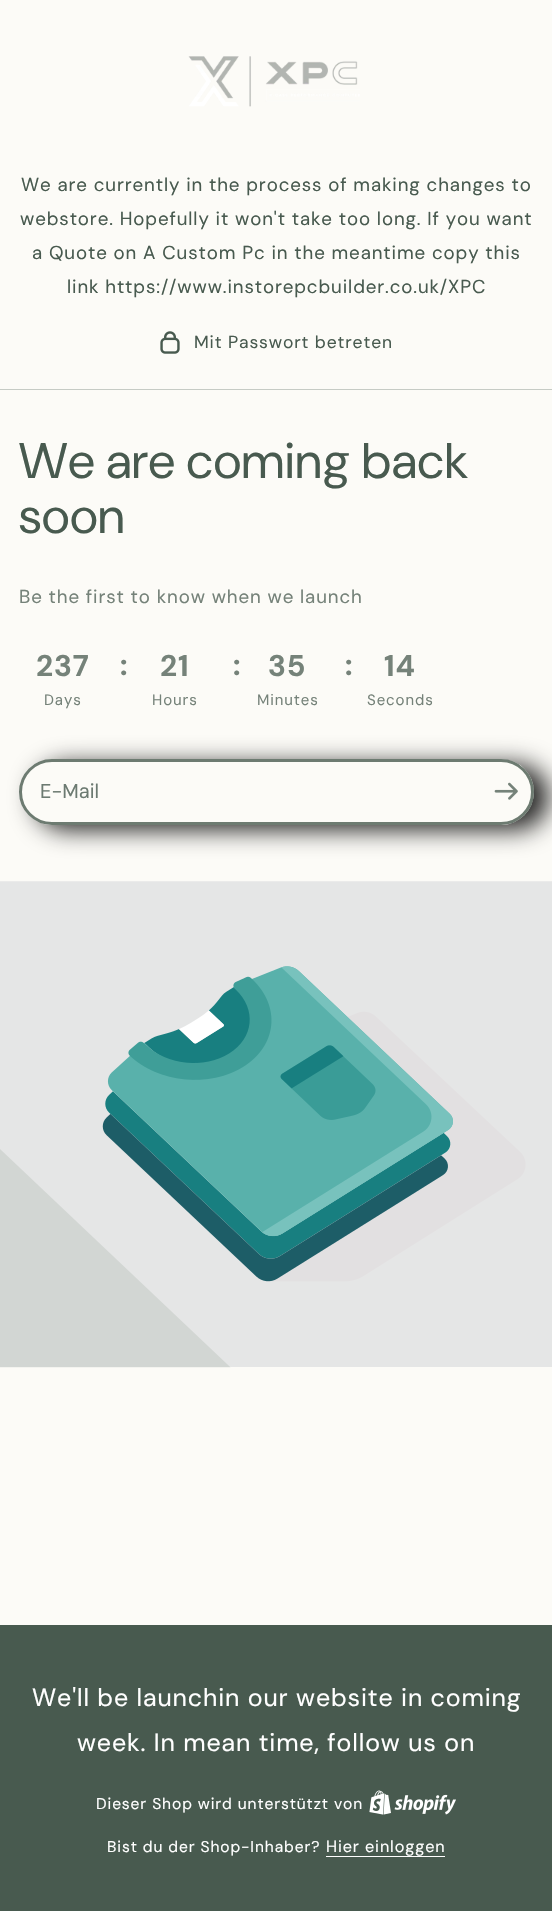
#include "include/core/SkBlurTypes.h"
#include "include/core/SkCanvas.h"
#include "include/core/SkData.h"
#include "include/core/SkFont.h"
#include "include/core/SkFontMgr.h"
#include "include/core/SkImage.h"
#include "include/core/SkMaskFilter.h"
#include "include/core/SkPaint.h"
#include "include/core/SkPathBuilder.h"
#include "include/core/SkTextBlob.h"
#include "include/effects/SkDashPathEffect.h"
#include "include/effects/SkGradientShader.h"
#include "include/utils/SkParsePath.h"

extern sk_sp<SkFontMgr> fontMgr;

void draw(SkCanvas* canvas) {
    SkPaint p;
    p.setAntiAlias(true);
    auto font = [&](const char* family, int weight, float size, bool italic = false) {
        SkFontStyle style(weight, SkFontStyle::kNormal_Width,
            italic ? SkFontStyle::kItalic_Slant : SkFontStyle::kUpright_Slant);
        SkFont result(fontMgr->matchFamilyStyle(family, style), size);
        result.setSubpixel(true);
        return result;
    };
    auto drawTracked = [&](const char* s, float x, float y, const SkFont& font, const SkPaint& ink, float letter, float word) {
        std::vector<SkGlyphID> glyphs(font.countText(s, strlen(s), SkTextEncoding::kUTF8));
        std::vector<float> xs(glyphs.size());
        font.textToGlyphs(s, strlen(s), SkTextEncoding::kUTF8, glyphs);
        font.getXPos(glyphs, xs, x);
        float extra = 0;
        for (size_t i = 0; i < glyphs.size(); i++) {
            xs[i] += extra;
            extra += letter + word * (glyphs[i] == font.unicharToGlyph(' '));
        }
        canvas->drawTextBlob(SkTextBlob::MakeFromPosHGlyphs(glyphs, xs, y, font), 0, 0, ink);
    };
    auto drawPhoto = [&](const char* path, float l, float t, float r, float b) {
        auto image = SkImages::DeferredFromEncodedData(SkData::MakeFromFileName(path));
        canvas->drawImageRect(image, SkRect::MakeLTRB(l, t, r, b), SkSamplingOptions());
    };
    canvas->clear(0xFFFCFBF7);
    p.setColor(0xFFC6CBC5);
    canvas->drawRect(SkRect::MakeLTRB(0, 389, 552, 390), p);
    drawPhoto("media/1.png", 188, 56, 360, 107);
    auto font1 = font("DM Sans", 400, 18.75f);
    p.setColor(0xFF485A4F);
    {
        const struct { const char* s; float x, y; } items[] = {
            {"We are currently in the process of making changes to", 21, 191},
            {"webstore. Hopefully it won't take too long. If you want", 20, 225},
            {"a Quote on A Custom Pc in the meantime copy this", 32, 259},
            {"link https://www.instorepcbuilder.co.uk/XPC", 67, 293},
        };
        for (auto [s, x, y] : items) {
            drawTracked(s, x, y, font1, p, 0.88f, 0);
        }
    }
    drawPhoto("media/2.png", 160, 331, 180, 354);
    auto font2 = font("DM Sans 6", 400, 17.5f);
    drawTracked("Mit Passwort betreten", 194, 348, font2, p, 0.88f, 0);
    auto font3 = font("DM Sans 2", 400, 50);
    drawTracked("We are coming back", 19, 478, font3, p, 0.88f, 0);
    drawTracked("soon", 19, 533, font3, p, 0.88f, 0);
    p.setColor(0xFF758279);
    drawTracked("Be the first to know when we launch", 19, 603, font1, p, 0.88f, 0);
    auto font4 = font("DM Sans", 700, 30);
    drawTracked("237", 36, 676, font4, p, 0.88f, 0);
    auto font5 = font("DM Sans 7", 400, 15);
    drawTracked("Days", 44, 705, font5, p, 0.88f, 0);
    drawTracked(":", 120, 675, font4, p, 0.88f, 0);
    drawTracked("21", 160, 676, font4, p, 0.88f, 0);
    drawTracked("Hours", 152, 705, font5, p, 0.88f, 0);
    drawTracked(":", 233, 675, font4, p, 0.88f, 0);
    drawTracked("35", 268, 676, font4, p, 0.88f, 0);
    drawTracked("Minutes", 257, 705, font5, p, 0.88f, 0);
    drawTracked(":", 345, 675, font4, p, 0.88f, 0);
    drawTracked("14", 384, 676, font4, p, 0.88f, 0);
    drawTracked("Seconds", 367, 705, font5, p, 0.88f, 0);
    p.setColor(0xD9000000);
    p.setMaskFilter(SkMaskFilter::MakeBlur(kNormal_SkBlurStyle, 12.5f));
    canvas->drawRoundRect(SkRect::MakeLTRB(34, 764, 549, 830), 33, 33, p);
    p.setMaskFilter(nullptr);
    p.setColor(0xFFFCFBF7);
    canvas->drawRoundRect(SkRect::MakeLTRB(19, 759, 534, 825), 33, 33, p);
    p.setStyle(SkPaint::kStroke_Style);
    p.setStrokeWidth(3);
    p.setColor(0xCC485A4F);
    canvas->drawRoundRect(SkRect::MakeLTRB(20.5f, 760.5f, 532.5f, 823.5f), 31.5f, 31.5f, p);
    auto font6 = font("DM Sans 7", 400, 20);
    p.setStyle(SkPaint::kFill_Style);
    p.setColor(0xFF6C7A71);
    canvas->drawString("E-Mail", 40, 798, font6, p);
    drawPhoto("media/3.png", 494, 782, 518, 800);
    drawPhoto("media/4.png", 0, 881, 552, 1368);
    p.setColor(0xFF485A4F);
    canvas->drawRect(SkRect::MakeLTRB(0, 1625, 552, 1911), p);
    auto font7 = font("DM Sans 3", 400, 25);
    p.setColor(0xFFFFFFFF);
    drawTracked("We'll be launchin our website in coming", 32, 1706, font7, p, 0.88f, 0);
    drawTracked("week. In mean time, follow us on", 77, 1751, font7, p, 0.88f, 0);
    auto font8 = font("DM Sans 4", 400, 15.6f);
    drawTracked("Dieser Shop wird unterstützt von", 96, 1809, font8, p, 0.88f, 0);
    drawPhoto("media/5.png", 369, 1790, 456, 1815);
    drawTracked("Bist du der Shop-Inhaber?", 107, 1852, font8, p, 0.88f, 0);
    auto font9 = font("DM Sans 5", 400, 16.25f);
    drawTracked("Hier einloggen", 326, 1852, font9, p, 0.88f, 0);
    canvas->drawRect(SkRect::MakeLTRB(326, 1856, 445, 1857), p);
}
